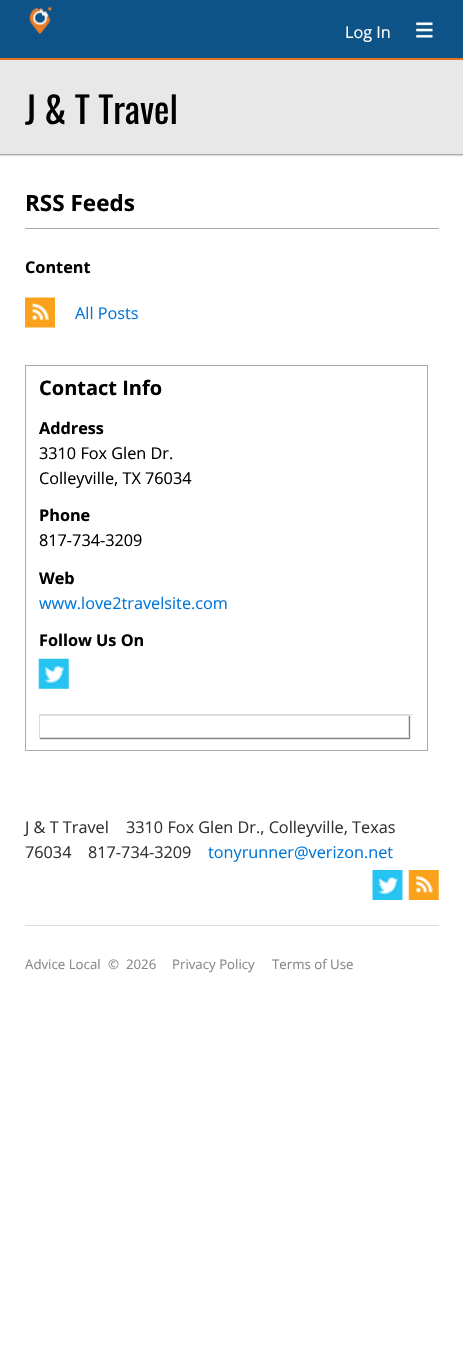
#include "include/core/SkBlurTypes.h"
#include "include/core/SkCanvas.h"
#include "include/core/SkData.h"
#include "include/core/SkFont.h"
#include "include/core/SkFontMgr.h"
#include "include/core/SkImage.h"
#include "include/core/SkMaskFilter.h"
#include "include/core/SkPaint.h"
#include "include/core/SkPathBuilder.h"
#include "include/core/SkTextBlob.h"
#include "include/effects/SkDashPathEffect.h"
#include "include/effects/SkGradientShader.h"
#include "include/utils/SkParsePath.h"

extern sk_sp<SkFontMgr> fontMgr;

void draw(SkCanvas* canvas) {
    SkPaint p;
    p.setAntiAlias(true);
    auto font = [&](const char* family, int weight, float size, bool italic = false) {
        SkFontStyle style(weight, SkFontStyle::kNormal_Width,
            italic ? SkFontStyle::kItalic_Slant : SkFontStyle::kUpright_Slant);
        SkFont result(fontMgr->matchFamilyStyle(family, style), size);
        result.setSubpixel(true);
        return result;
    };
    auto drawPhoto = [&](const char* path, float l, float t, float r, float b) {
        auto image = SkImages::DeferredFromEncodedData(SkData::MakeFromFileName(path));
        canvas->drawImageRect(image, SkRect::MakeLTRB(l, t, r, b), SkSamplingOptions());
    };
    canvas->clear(0xFFFFFFFF);
    p.setColor(0xFF0E5388);
    canvas->drawRect(SkRect::MakeLTRB(0, 0, 463, 58), p);
    p.setColor(0xFFE67127);
    canvas->drawRect(SkRect::MakeLTRB(0, 58, 463, 60), p);
    drawPhoto("media/1.png", 29, 6, 52, 34);
    auto font1 = font("Open Sans", 400, 16.25f);
    p.setColor(0xFFFFFFFF);
    canvas->drawString("Log In", 345, 38, font1, p);
    drawPhoto("media/2.png", 416, 22, 433, 38);
    p.setColor(0xFFDDDDDD);
    p.setMaskFilter(SkMaskFilter::MakeBlur(kNormal_SkBlurStyle, 0.5f));
    canvas->drawRect(SkRect::MakeLTRB(0, 61, 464, 156), p);
    p.setMaskFilter(nullptr);
    p.setColor(0xFFE8E8E8);
    canvas->drawRect(SkRect::MakeLTRB(0, 60, 463, 154), p);
    p.setColor(0xFFAAAAAA);
    canvas->drawRect(SkRect::MakeLTRB(0, 154, 463, 155), p);
    auto font2 = font("Oswald", 400, 36.5f);
    p.setColor(0xFF000000);
    canvas->drawString("J & T Travel", 25, 124, font2, p);
    p.setColor(0xFFAAAAAA);
    canvas->drawRect(SkRect::MakeLTRB(25, 228, 439, 229), p);
    auto font3 = font("Open Sans", 700, 22.5f);
    p.setColor(0xFF000000);
    canvas->drawString("RSS Feeds", 25, 211, font3, p);
    auto font4 = font("Open Sans", 700, 16.25f);
    canvas->drawString("Content", 25, 273, font4, p);
    drawPhoto("media/3.png", 25, 297, 55, 328);
    p.setColor(0xFF0176D9);
    canvas->drawString("All Posts", 75, 319, font1, p);
    p.setStyle(SkPaint::kStroke_Style);
    p.setStrokeWidth(1);
    p.setColor(0xFFAAAAAA);
    canvas->drawRect(SkRect::MakeLTRB(25.5f, 365.5f, 427.5f, 750.5f), p);
    auto font5 = font("Open Sans", 700, 20);
    p.setStyle(SkPaint::kFill_Style);
    p.setColor(0xFF000000);
    canvas->drawString("Contact Info", 39, 395, font5, p);
    canvas->drawString("Address", 39, 434, font4, p);
    canvas->drawString("3310 Fox Glen Dr.", 39, 459, font1, p);
    canvas->drawString("Colleyville, TX 76034", 39, 484, font1, p);
    canvas->drawString("Phone", 39, 521, font4, p);
    canvas->drawString("817-734-3209", 39, 546, font1, p);
    canvas->drawString("Web", 39, 584, font4, p);
    p.setColor(0xFF0176D9);
    canvas->drawString("www.love2travelsite.com", 39, 609, font1, p);
    p.setColor(0xFF000000);
    canvas->drawString("Follow Us On", 39, 646, font4, p);
    drawPhoto("media/4.png", 38, 658, 69, 689);
    p.setColor(0xFFDDDDDD);
    canvas->drawRect(SkRect::MakeLTRB(39, 714, 413, 715), p);
    canvas->save();
    canvas->clipPath(SkPathBuilder(SkPathFillType::kEvenOdd).moveTo(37, 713).lineTo(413, 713).lineTo(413, 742).lineTo(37, 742).close().moveTo(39, 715).lineTo(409, 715).lineTo(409, 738).lineTo(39, 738).close().detach(), true);
    p.setColor(0xFF808080);
    p.setMaskFilter(SkMaskFilter::MakeBlur(kNormal_SkBlurStyle, 0.5f));
    canvas->drawRect(SkRect::MakeLTRB(40, 716, 410, 739), p);
    p.setMaskFilter(nullptr);
    canvas->restore();
    p.setStyle(SkPaint::kStroke_Style);
    p.setColor(0xFFDDDDDD);
    canvas->drawRect(SkRect::MakeLTRB(39.5f, 715.5f, 408.5f, 737.5f), p);
    p.setStyle(SkPaint::kFill_Style);
    p.setColor(0xFF333333);
    {
        const struct { const char* s; float x, y; } items[] = {
            {"J & T Travel", 25, 833},
            {"3310 Fox Glen Dr., Colleyville, Texas", 126, 833},
            {"76034", 25, 858},
            {"817-734-3209", 88, 858},
        };
        for (auto [s, x, y] : items) {
            canvas->drawString(s, x, y, font1, p);
        }
    }
    p.setColor(0xFF0176D9);
    canvas->drawString("tonyrunner@verizon.net", 208, 858, font1, p);
    drawPhoto("media/5.png", 372, 870, 403, 900);
    drawPhoto("media/6.png", 408, 870, 439, 900);
    p.setColor(0xFFDDDDDD);
    canvas->drawRect(SkRect::MakeLTRB(25, 925, 439, 926), p);
    auto font6 = font("Open Sans", 400, 13.25f);
    p.setColor(0xFF888888);
    {
        const struct { const char* s; float x, y; } items[] = {
            {"Advice Local", 25, 969},
            {"©  2026", 108, 969},
            {"Privacy Policy", 172, 969},
            {"Terms of Use", 272, 969},
        };
        for (auto [s, x, y] : items) {
            canvas->drawString(s, x, y, font6, p);
        }
    }
}
